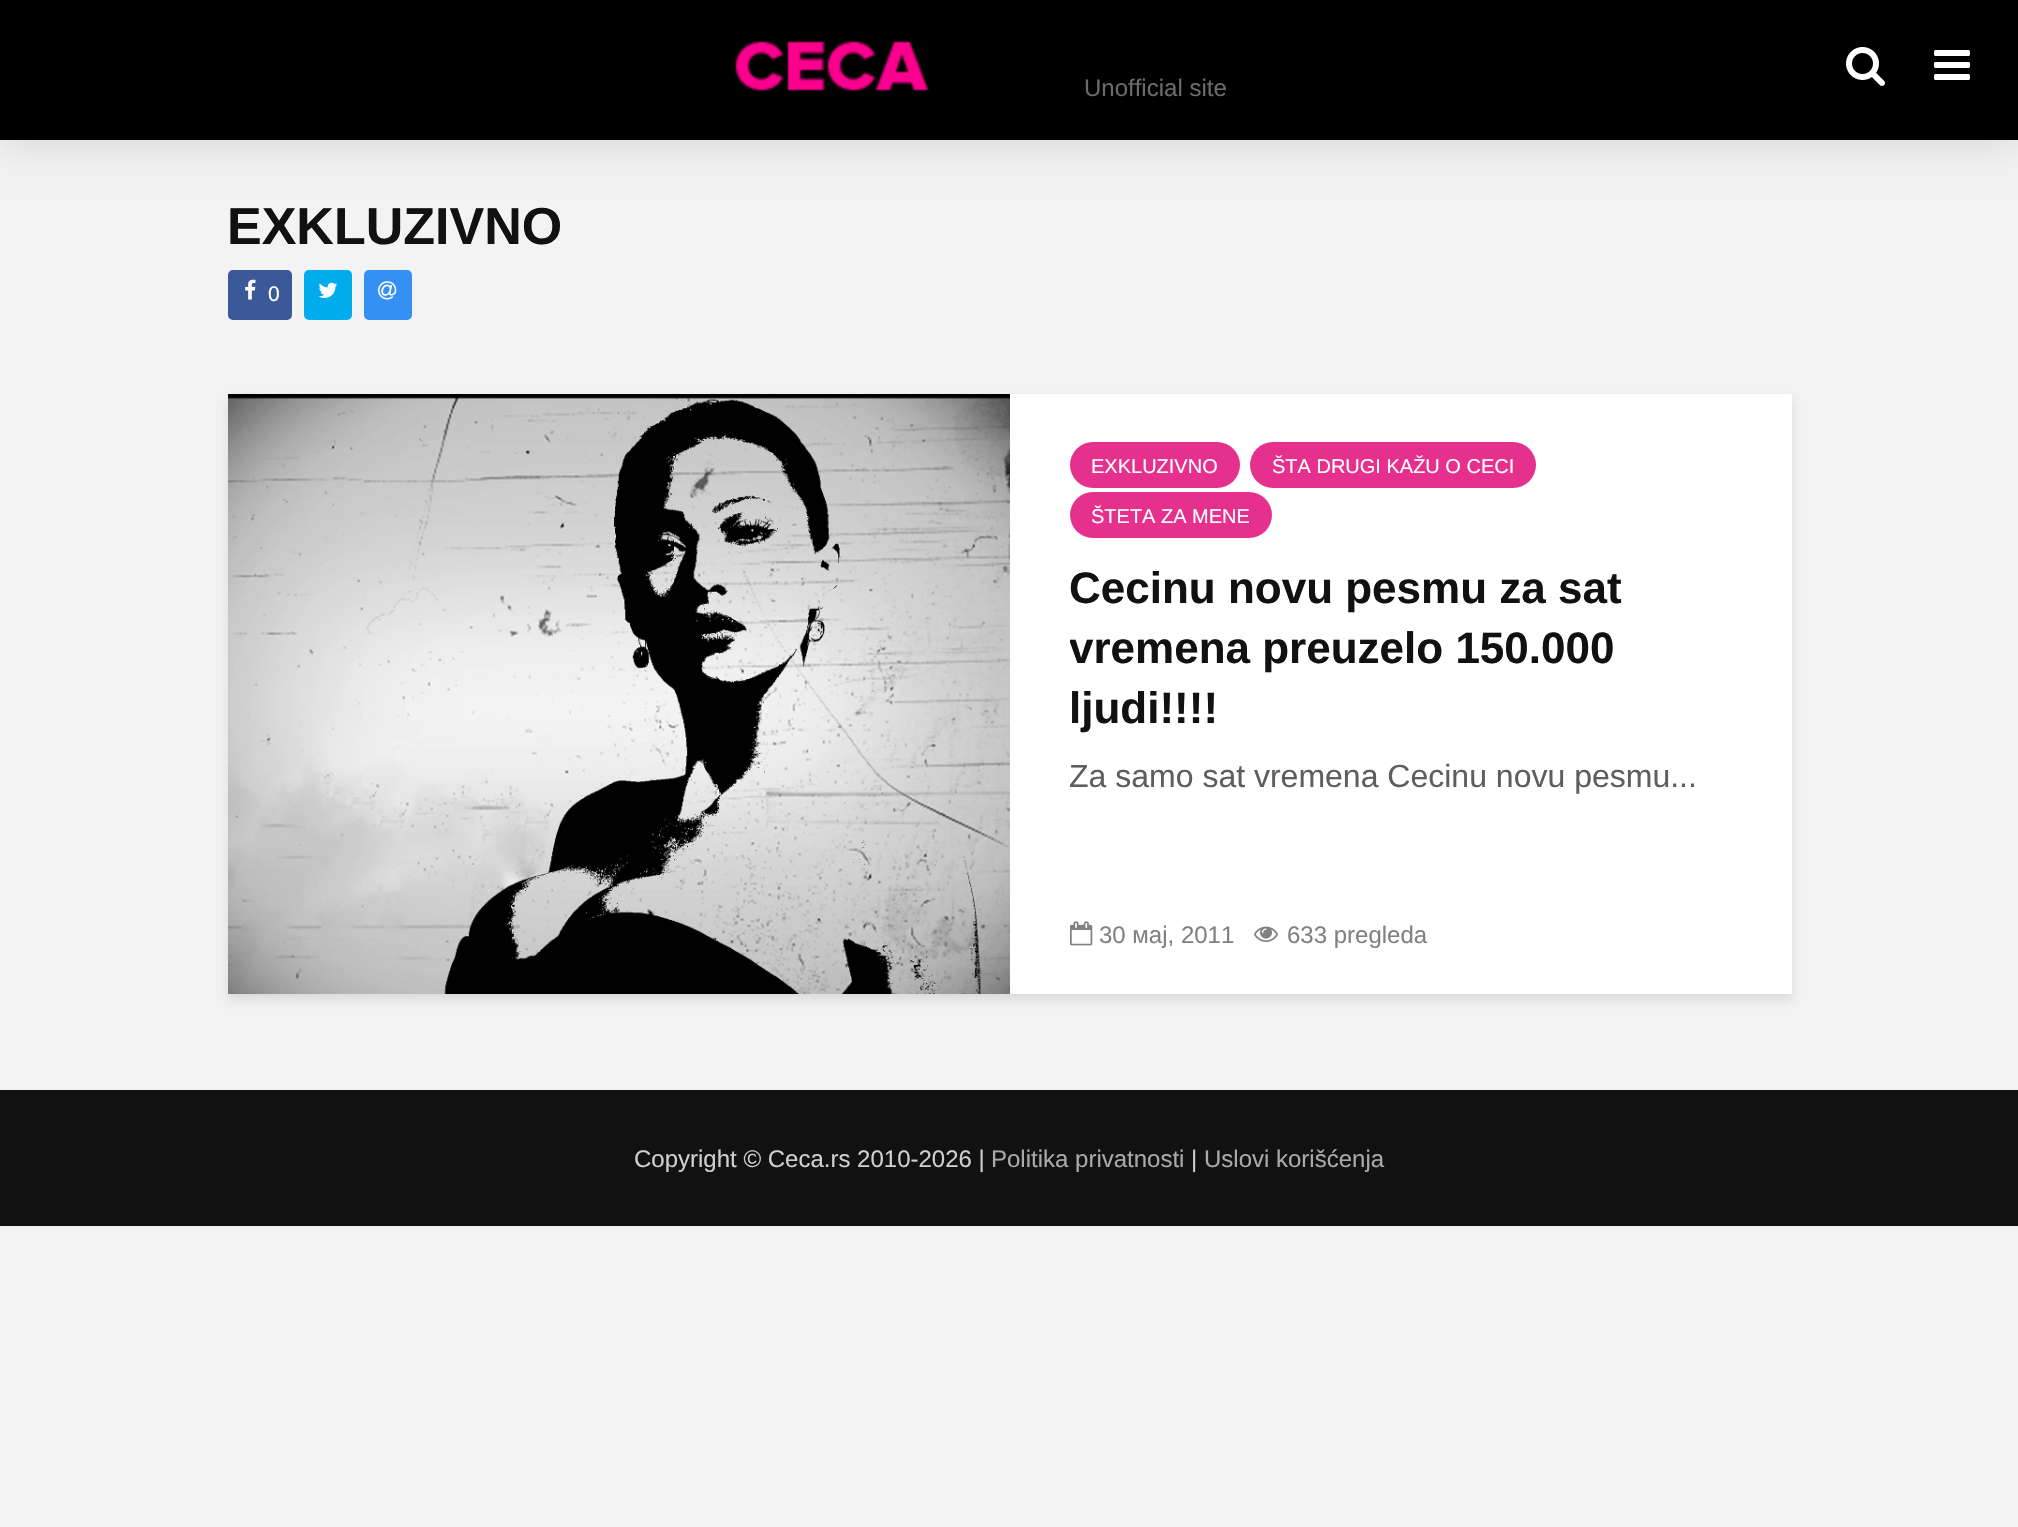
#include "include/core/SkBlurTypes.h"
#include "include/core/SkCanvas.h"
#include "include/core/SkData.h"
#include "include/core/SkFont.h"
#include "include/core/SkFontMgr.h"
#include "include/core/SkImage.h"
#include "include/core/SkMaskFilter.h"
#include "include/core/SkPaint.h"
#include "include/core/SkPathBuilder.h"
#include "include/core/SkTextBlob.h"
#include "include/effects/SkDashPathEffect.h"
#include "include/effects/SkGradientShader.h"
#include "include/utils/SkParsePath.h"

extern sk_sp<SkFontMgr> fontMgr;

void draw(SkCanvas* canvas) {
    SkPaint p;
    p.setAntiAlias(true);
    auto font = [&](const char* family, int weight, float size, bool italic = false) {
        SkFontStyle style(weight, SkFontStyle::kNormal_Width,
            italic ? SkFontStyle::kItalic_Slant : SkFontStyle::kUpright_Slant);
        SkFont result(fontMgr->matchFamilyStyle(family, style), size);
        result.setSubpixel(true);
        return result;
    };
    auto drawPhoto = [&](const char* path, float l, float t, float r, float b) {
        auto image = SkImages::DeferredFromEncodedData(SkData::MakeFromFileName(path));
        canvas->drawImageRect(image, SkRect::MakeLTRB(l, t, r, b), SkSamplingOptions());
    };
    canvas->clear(0xFFF3F3F3);
    p.setColor(0x26000000);
    p.setMaskFilter(SkMaskFilter::MakeBlur(kNormal_SkBlurStyle, 20));
    canvas->drawRect(SkRect::MakeLTRB(0, 0, 2018, 140), p);
    p.setMaskFilter(nullptr);
    p.setColor(0xFF000000);
    canvas->drawRect(SkRect::MakeLTRB(0, 0, 2018, 140), p);
    drawPhoto("media/1.png", 735, 41, 929, 91);
    auto font1 = font("Liberation Sans", 400, 24);
    p.setColor(0xFF6B6B6B);
    canvas->drawString("Unofficial site", 1084, 96, font1, p);
    drawPhoto("media/2.png", 1846, 47, 1885, 86);
    drawPhoto("media/3.png", 1934, 50, 1970, 80);
    auto font2 = font("Liberation Sans", 700, 52);
    p.setColor(0xFF111111);
    canvas->drawString("EXKLUZIVNO", 227, 244, font2, p);
    p.setColor(0xFF3B5998);
    canvas->drawRoundRect(SkRect::MakeLTRB(228, 270, 292, 320), 5, 5, p);
    drawPhoto("media/4.png", 245, 279, 256, 300);
    auto font3 = font("Liberation Sans", 400, 21);
    p.setColor(0xFFFFFFFF);
    canvas->drawString("0", 268, 301, font3, p);
    p.setColor(0xFF00ACED);
    canvas->drawRoundRect(SkRect::MakeLTRB(304, 270, 352, 320), 5, 5, p);
    drawPhoto("media/5.png", 318, 282, 338, 298);
    p.setColor(0xFF3490F3);
    canvas->drawRoundRect(SkRect::MakeLTRB(364, 270, 412, 320), 5, 5, p);
    drawPhoto("media/6.png", 378, 281, 397, 300);
    p.setColor(0x1A000101);
    p.setMaskFilter(SkMaskFilter::MakeBlur(kNormal_SkBlurStyle, 5));
    canvas->drawRect(SkRect::MakeLTRB(228, 400, 1792, 1000), p);
    p.setMaskFilter(nullptr);
    p.setColor(0xFFFFFFFF);
    canvas->drawRect(SkRect::MakeLTRB(1010, 394, 1792, 994), p);
    drawPhoto("media/7.png", 228, 394, 1010, 994);
    p.setColor(0xFFE6308D);
    canvas->drawRoundRect(SkRect::MakeLTRB(1070, 442, 1240, 488), 23, 23, p);
    auto font4 = font("Liberation Sans", 400, 20);
    p.setColor(0xFFFFFFFF);
    canvas->drawString("EXKLUZIVNO", 1091, 473, font4, p);
    p.setColor(0xFFE6308D);
    canvas->drawRoundRect(SkRect::MakeLTRB(1250, 442, 1536, 488), 23, 23, p);
    p.setColor(0xFFFFFFFF);
    canvas->drawString("ŠTA DRUGI KAŽU O CECI", 1272, 473, font4, p);
    p.setColor(0xFFE6308D);
    canvas->drawRoundRect(SkRect::MakeLTRB(1070, 492, 1272, 538), 23, 23, p);
    p.setColor(0xFFFFFFFF);
    canvas->drawString("ŠTETA ZA MENE", 1091, 523, font4, p);
    auto font5 = font("Liberation Sans", 700, 44);
    p.setColor(0xFF111111);
    canvas->drawString("Cecinu novu pesmu za sat", 1069, 603, font5, p);
    canvas->save();
    canvas->clipRect(SkRect::MakeLTRB(1070, 442, 1702, 836));
    canvas->drawString("vremena preuzelo 150.000", 1069, 663, font5, p);
    canvas->restore();
    canvas->drawString("ljudi!!!!", 1069, 723, font5, p);
    auto font6 = font("Liberation Sans", 400, 32);
    p.setColor(0xFF5E5E5E);
    canvas->drawString("Za samo sat vremena Cecinu novu pesmu...", 1069, 787, font6, p);
    drawPhoto("media/8.png", 1070, 921, 1093, 946);
    p.setColor(0xFF818181);
    canvas->drawString("30 мај, 2011", 1099, 943, font1, p);
    drawPhoto("media/9.png", 1254, 926, 1278, 942);
    canvas->drawString("633 pregleda", 1287, 943, font1, p);
    p.setColor(0xFF111111);
    canvas->drawRect(SkRect::MakeLTRB(0, 1090, 2018, 1226), p);
    p.setColor(0xFFCFCFCF);
    canvas->drawString("Copyright © Ceca.rs 2010-2026 |", 634, 1167, font1, p);
    p.setColor(0xFFA9A9A9);
    canvas->drawString("Politika privatnosti", 991, 1167, font1, p);
    p.setColor(0xFFCFCFCF);
    canvas->drawString("|", 1191, 1167, font1, p);
    p.setColor(0xFFA9A9A9);
    canvas->drawString("Uslovi korišćenja", 1204, 1167, font1, p);
}
